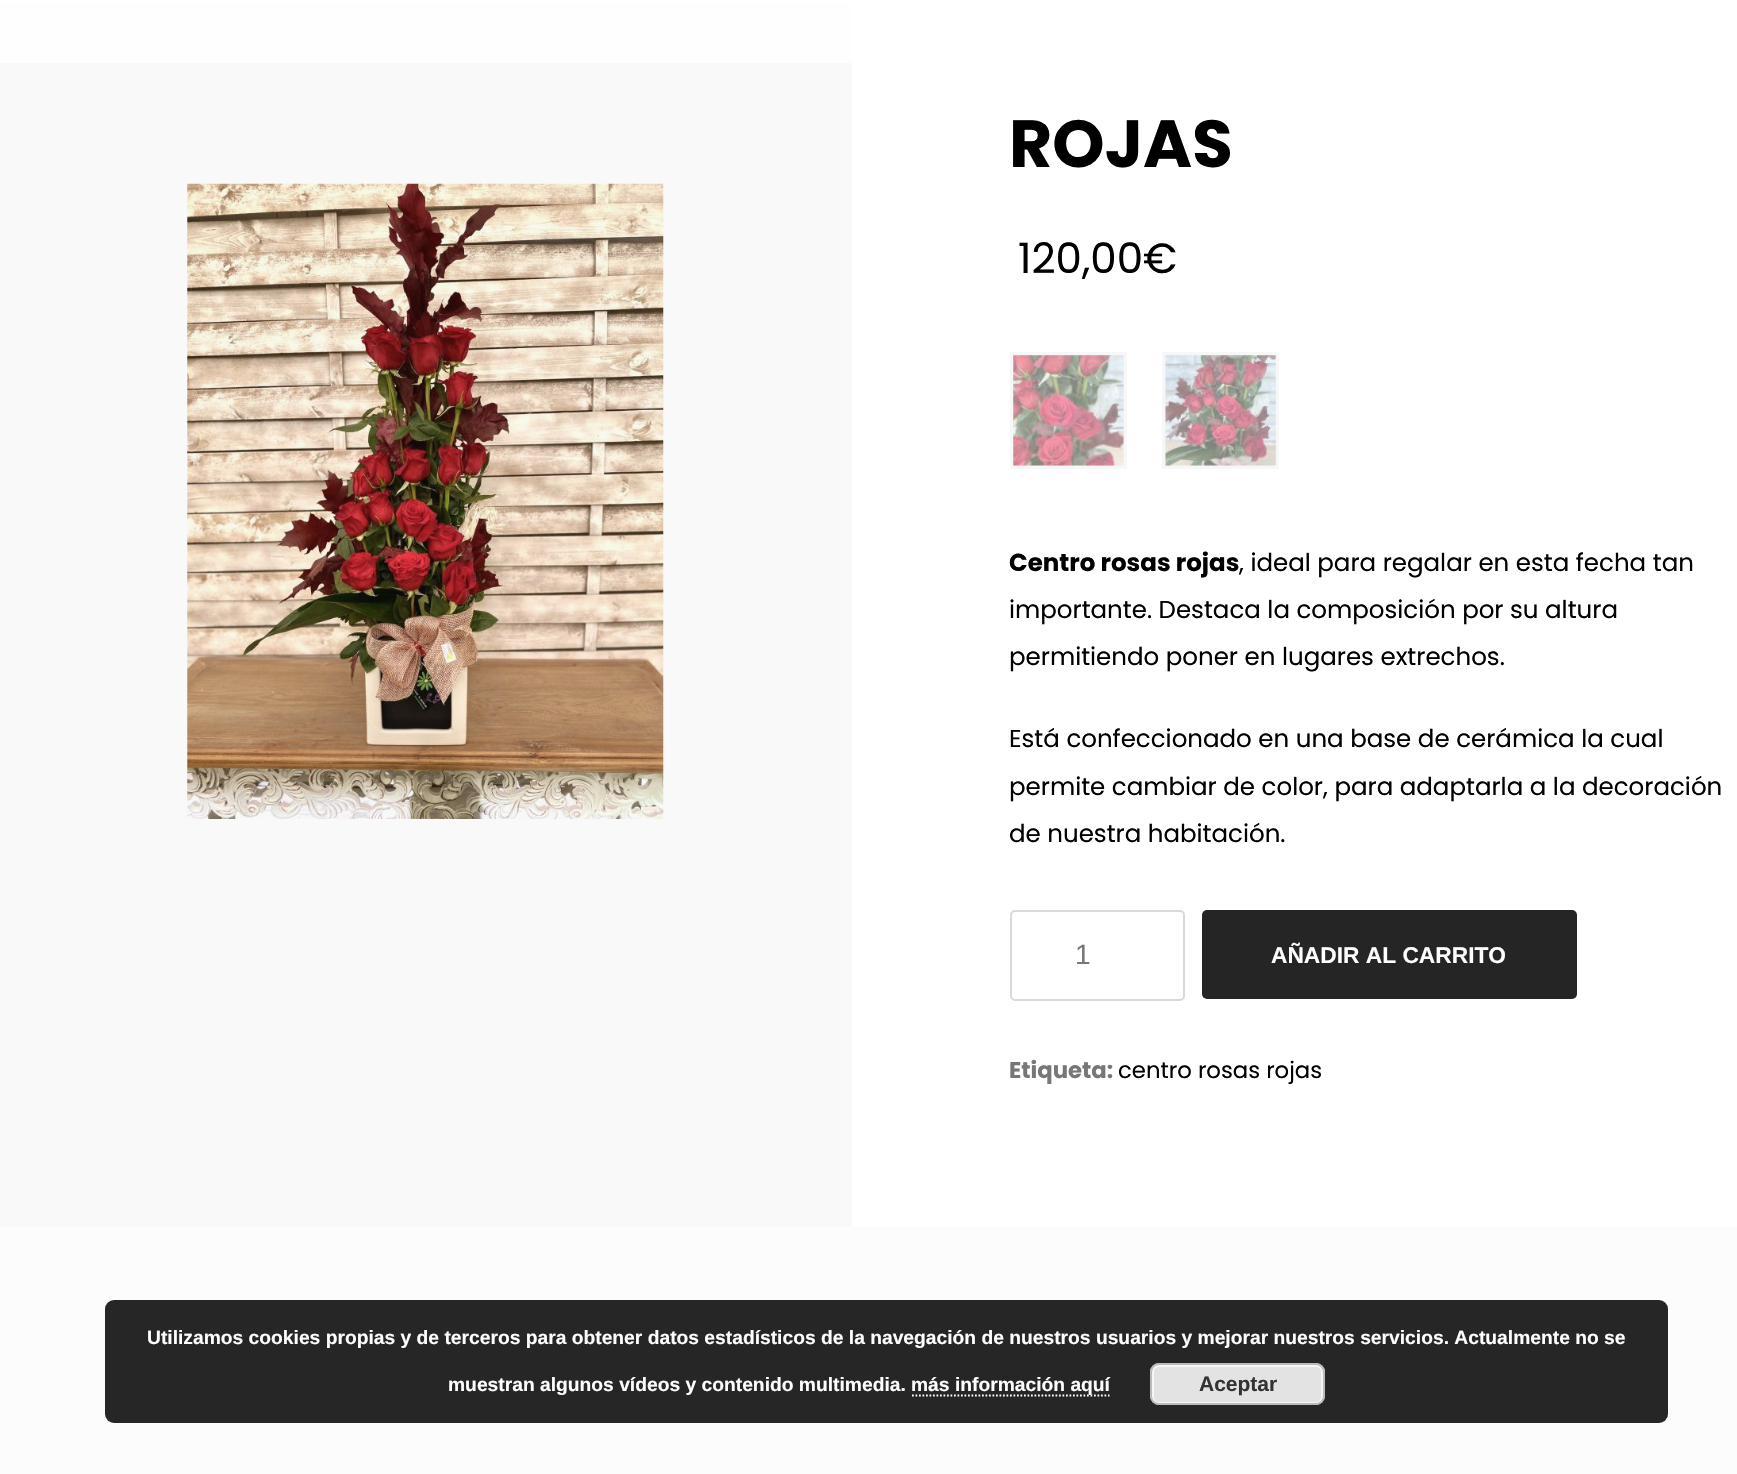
#include "include/core/SkBlurTypes.h"
#include "include/core/SkCanvas.h"
#include "include/core/SkData.h"
#include "include/core/SkFont.h"
#include "include/core/SkFontMgr.h"
#include "include/core/SkImage.h"
#include "include/core/SkMaskFilter.h"
#include "include/core/SkPaint.h"
#include "include/core/SkPathBuilder.h"
#include "include/core/SkTextBlob.h"
#include "include/effects/SkDashPathEffect.h"
#include "include/effects/SkGradientShader.h"
#include "include/utils/SkParsePath.h"

extern sk_sp<SkFontMgr> fontMgr;

void draw(SkCanvas* canvas) {
    SkPaint p;
    p.setAntiAlias(true);
    auto font = [&](const char* family, int weight, float size, bool italic = false) {
        SkFontStyle style(weight, SkFontStyle::kNormal_Width,
            italic ? SkFontStyle::kItalic_Slant : SkFontStyle::kUpright_Slant);
        SkFont result(fontMgr->matchFamilyStyle(family, style), size);
        result.setSubpixel(true);
        return result;
    };
    auto drawPhoto = [&](const char* path, float l, float t, float r, float b) {
        auto image = SkImages::DeferredFromEncodedData(SkData::MakeFromFileName(path));
        canvas->drawImageRect(image, SkRect::MakeLTRB(l, t, r, b), SkSamplingOptions());
    };
    canvas->clear(0xFFFFFFFF);
    p.setColor(0xFFF9F9F9);
    canvas->drawRect(SkRect::MakeLTRB(0, 0, 852, 1227), p);
    {
        const SkColor colors[] = {0xF2FFFFFF, 0xBFFFFFFF};
        const float stops[] = {0.56f, 1};
        const SkPoint ends[] = {{869, -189}, {869, 63}};
        p.setShader(SkGradientShader::MakeLinear(ends, colors, stops, 2, SkTileMode::kClamp));
        p.setAlpha(255);
    }
    canvas->drawRect(SkRect::MakeLTRB(0, 0, 852, 63), p);
    drawPhoto("media/1.png", 187, 183, 664, 819);
    auto font1 = font("Poppins", 700, 66.5f);
    p.setShader(nullptr);
    p.setColor(0xFF000000);
    canvas->drawString("ROJAS", 1009, 167, font1, p);
    auto font2 = font("Poppins", 400, 42);
    canvas->drawString("120,00€", 1018, 273, font2, p);
    p.setStyle(SkPaint::kStroke_Style);
    p.setStrokeWidth(4);
    p.setColor(0xFFF7F7F7);
    canvas->drawRect(SkRect::MakeLTRB(1012, 354, 1125, 467), p);
    drawPhoto("media/2.png", 1013, 355, 1124, 466);
    canvas->drawRect(SkRect::MakeLTRB(1164, 354, 1277, 467), p);
    drawPhoto("media/3.png", 1165, 355, 1276, 466);
    auto font3 = font("Poppins", 700, 24.5f);
    p.setStyle(SkPaint::kFill_Style);
    p.setColor(0xFF000000);
    canvas->drawString("Centro rosas rojas", 1009, 571, font3, p);
    auto font4 = font("Poppins", 400, 24.5f);
    {
        const struct { const char* s; float x, y; } items[] = {
            {", ideal para regalar en esta fecha tan", 1239, 571},
            {"importante. Destaca la composición por su altura", 1009, 618},
            {"permitiendo poner en lugares extrechos.", 1009, 665},
            {"Está confeccionado en una base de cerámica la cual", 1009, 747},
            {"permite cambiar de color, para adaptarla a la decoración", 1009, 795},
            {"de nuestra habitación.", 1009, 842},
        };
        for (auto [s, x, y] : items) {
            canvas->drawString(s, x, y, font4, p);
        }
    }
    p.setStyle(SkPaint::kStroke_Style);
    p.setStrokeWidth(2);
    p.setColor(0xFFD9D9D9);
    canvas->drawRoundRect(SkRect::MakeLTRB(1011, 911, 1184, 1000), 4, 4, p);
    auto font5 = font("Liberation Sans", 400, 28);
    p.setStyle(SkPaint::kFill_Style);
    p.setColor(0xFF777777);
    canvas->drawString("1", 1075, 964, font5, p);
    p.setColor(0xFF252525);
    canvas->drawRoundRect(SkRect::MakeLTRB(1202, 910, 1577, 999), 5, 5, p);
    auto font6 = font("Liberation Sans", 700, 22.75f);
    p.setColor(0xFFFFFFFF);
    canvas->drawString("AÑADIR AL CARRITO", 1271, 963, font6, p);
    auto font7 = font("Poppins", 700, 22.75f);
    p.setColor(0xFF777777);
    canvas->drawString("Etiqueta:", 1009, 1078, font7, p);
    auto font8 = font("Poppins", 400, 22.75f);
    p.setColor(0xFF000000);
    canvas->drawString("centro rosas rojas", 1118, 1078, font8, p);
    p.setColor(0xFFFCFCFC);
    canvas->drawRect(SkRect::MakeLTRB(0, 1227, 1737, 1474), p);
    p.setColor(0xFF262626);
    canvas->drawRoundRect(SkRect::MakeLTRB(105, 1300, 1668, 1423), 9, 9, p);
    auto font9 = font("Liberation Sans", 700, 19.25f);
    p.setColor(0xFFFFFFFF);
    canvas->drawString("Utilizamos cookies propias y de terceros para obtener datos estadísticos de la navegación de nuestros usuarios y mejorar nuestros servicios. Actualmente no se", 147, 1344, font9, p);
    canvas->drawString("muestran algunos vídeos y contenido multimedia.", 448, 1391, font9, p);
    p.setStyle(SkPaint::kStroke_Style);
    p.setStrokeWidth(1.8f);
    p.setPathEffect(SkDashPathEffect::Make({{1.75f, 1.75f}}, 0));
    canvas->drawPath(SkPathBuilder().moveTo(912, 1395.5f).lineTo(1109.5f, 1395.5f).detach(), p);
    p.setPathEffect(nullptr);
    p.setStyle(SkPaint::kFill_Style);
    canvas->drawString("más información aquí", 911, 1391, font9, p);
    p.setColor(0xFFE3E3E3);
    canvas->drawRoundRect(SkRect::MakeLTRB(1150, 1363, 1325, 1405), 9, 9, p);
    p.setStyle(SkPaint::kStroke_Style);
    p.setStrokeWidth(2);
    p.setColor(0xFFF6F6F6);
    canvas->drawRoundRect(SkRect::MakeLTRB(1153, 1366, 1322, 1403), 6, 6, p);
    p.setColor(0xFFBBBBBB);
    canvas->drawRoundRect(SkRect::MakeLTRB(1151, 1364, 1324, 1404), 8, 8, p);
    auto font10 = font("Liberation Sans", 700, 21);
    p.setStyle(SkPaint::kFill_Style);
    p.setColor(0xFF333333);
    canvas->drawString("Aceptar", 1199, 1391, font10, p);
}
